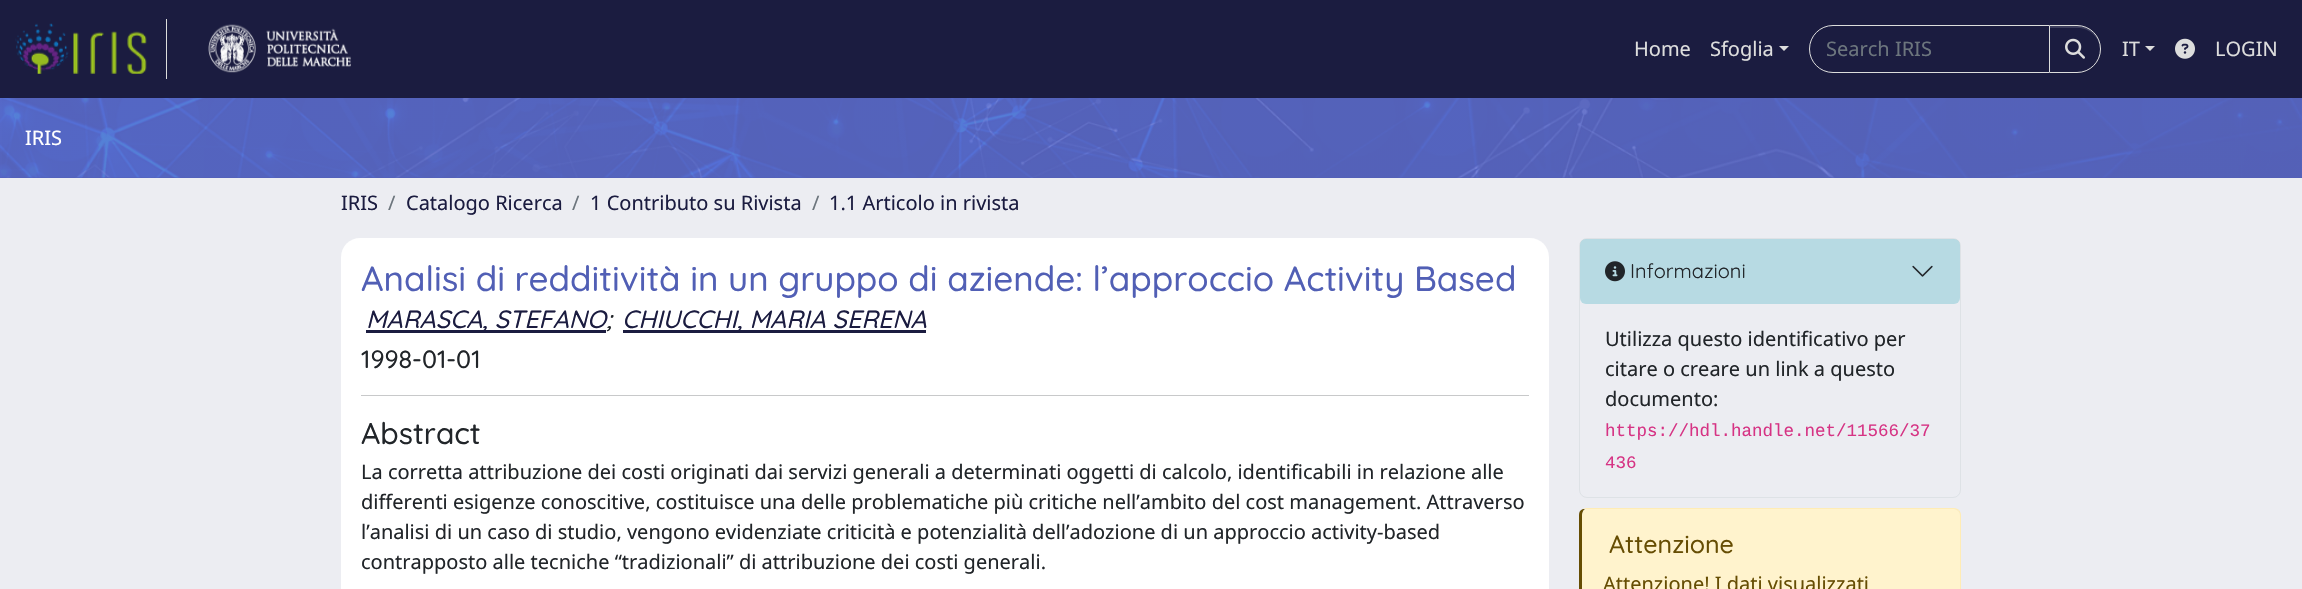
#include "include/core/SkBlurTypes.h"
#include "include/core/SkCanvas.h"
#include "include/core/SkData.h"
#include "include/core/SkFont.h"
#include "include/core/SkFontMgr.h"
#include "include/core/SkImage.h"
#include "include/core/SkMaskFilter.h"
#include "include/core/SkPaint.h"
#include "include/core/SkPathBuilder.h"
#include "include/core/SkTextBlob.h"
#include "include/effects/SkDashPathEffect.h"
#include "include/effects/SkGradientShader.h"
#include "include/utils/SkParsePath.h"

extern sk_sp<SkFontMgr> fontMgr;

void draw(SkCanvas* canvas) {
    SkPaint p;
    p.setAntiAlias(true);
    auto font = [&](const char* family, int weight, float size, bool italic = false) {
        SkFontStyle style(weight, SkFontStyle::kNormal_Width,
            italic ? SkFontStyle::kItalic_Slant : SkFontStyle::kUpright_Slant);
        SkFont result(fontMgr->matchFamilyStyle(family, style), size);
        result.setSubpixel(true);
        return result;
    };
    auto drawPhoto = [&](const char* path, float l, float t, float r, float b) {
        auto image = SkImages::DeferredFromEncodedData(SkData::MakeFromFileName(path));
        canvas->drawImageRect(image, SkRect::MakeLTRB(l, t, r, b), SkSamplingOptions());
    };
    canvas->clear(0xFFECEDF2);
    p.setColor(0xFF1B1C40);
    canvas->drawRect(SkRect::MakeLTRB(0, 0, 2302, 98), p);
    p.setColor(0xFFDDDDDD);
    canvas->drawRect(SkRect::MakeLTRB(166, 19, 167, 79), p);
    drawPhoto("media/1.png", 15, 23, 147, 74);
    drawPhoto("media/2.png", 208, 24, 351, 73);
    auto font1 = font("Noto Sans", 400, 20);
    canvas->drawString("Home", 1634, 56, font1, p);
    canvas->drawString("Sfoglia", 1710, 56, font1, p);
    canvas->drawPath(SkPathBuilder().moveTo(1779, 46).lineTo(1789, 46).lineTo(1784, 51).close().detach(), p);
    p.setStyle(SkPaint::kStroke_Style);
    p.setStrokeWidth(1);
    canvas->drawPath(SkPathBuilder().moveTo(1833, 25.5f).lineTo(2049.5f, 25.5f).lineTo(2049.5f, 72.5f).lineTo(1833, 72.5f).cubicTo(1820, 72.5f, 1809.5f, 62, 1809.5f, 49).cubicTo(1809.5f, 36, 1820, 25.5f, 1833, 25.5f).close().detach(), p);
    p.setStyle(SkPaint::kFill_Style);
    p.setColor(0xFF6C757D);
    canvas->drawString("Search IRIS", 1826, 56, font1, p);
    p.setColor(0x12000000);
    p.setMaskFilter(SkMaskFilter::MakeBlur(kNormal_SkBlurStyle, 0.5f));
    canvas->drawRoundRect(SkRect::MakeLTRB(2049, 26, 2101, 74), 24, 24, p);
    p.setMaskFilter(nullptr);
    p.setColor(0xFF1B1C40);
    canvas->drawPath(SkPathBuilder().moveTo(2049, 25).lineTo(2077, 25).cubicTo(2090.5f, 25, 2101, 35.5f, 2101, 49).cubicTo(2101, 62.5f, 2090.5f, 73, 2077, 73).lineTo(2049, 73).close().detach(), p);
    p.setColor(0xFF3D3E5D);
    canvas->drawPath(SkPathBuilder().moveTo(2050, 28).lineTo(2078, 28).cubicTo(2090, 28, 2100, 38, 2100, 49).lineTo(2100, 48).cubicTo(2100, 36, 2090, 26, 2078, 26).lineTo(2050, 26).close().detach(), p);
    p.setStyle(SkPaint::kStroke_Style);
    p.setColor(0xFFDDDDDD);
    canvas->drawPath(SkPathBuilder().moveTo(2049.5f, 25.5f).lineTo(2077, 25.5f).cubicTo(2090, 25.5f, 2100.5f, 36, 2100.5f, 49).cubicTo(2100.5f, 62, 2090, 72.5f, 2077, 72.5f).lineTo(2049.5f, 72.5f).close().detach(), p);
    drawPhoto("media/3.png", 2065, 38, 2085, 59);
    p.setStyle(SkPaint::kFill_Style);
    canvas->drawString("IT", 2122, 56, font1, p);
    canvas->drawPath(SkPathBuilder().moveTo(2145, 46).lineTo(2155, 46).lineTo(2150, 51).close().detach(), p);
    drawPhoto("media/4.png", 2175, 38, 2195, 59);
    canvas->drawString("LOGIN", 2215, 56, font1, p);
    p.setColor(0xFF515FB5);
    canvas->drawRect(SkRect::MakeLTRB(0, 98, 2302, 178), p);
    drawPhoto("media/5.png", 0, 98, 2302, 178);
    p.setColor(0xFFFFFFFF);
    canvas->drawString("IRIS", 25, 145, font1, p);
    p.setColor(0xFF1B1C40);
    canvas->drawString("IRIS", 341, 210, font1, p);
    p.setColor(0xFF6C757D);
    canvas->drawString("/", 388, 210, font1, p);
    p.setColor(0xFF1B1C40);
    canvas->drawString("Catalogo Ricerca", 406, 210, font1, p);
    p.setColor(0xFF6C757D);
    canvas->drawString("/", 572, 210, font1, p);
    p.setColor(0xFF1B1C40);
    canvas->drawString("1 Contributo su Rivista", 590, 210, font1, p);
    p.setColor(0xFF6C757D);
    canvas->drawString("/", 812, 210, font1, p);
    p.setColor(0xFF1B1C40);
    canvas->drawString("1.1 Articolo in rivista", 829, 210, font1, p);
    p.setColor(0xFFFFFFFF);
    canvas->drawRoundRect(SkRect::MakeLTRB(341, 238, 1549, 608), 19, 19, p);
    auto font2 = font("Quicksand", 500, 35);
    p.setColor(0xFF515FB5);
    canvas->drawString("Analisi di redditività in un gruppo di aziende: l’approccio Activity Based", 361, 291, font2, p);
    p.setColor(0xFF1B1C40);
    canvas->drawRect(SkRect::MakeLTRB(366, 330, 606, 333), p);
    auto font3 = font("Quicksand", 500, 25, true);
    canvas->drawString("MARASCA, STEFANO", 366, 328, font3, p);
    p.setColor(0xFF212529);
    canvas->drawString(";", 606, 328, font3, p);
    p.setColor(0xFF1B1C40);
    canvas->drawRect(SkRect::MakeLTRB(623, 330, 926, 333), p);
    canvas->drawString("CHIUCCHI, MARIA SERENA", 622, 328, font3, p);
    auto font4 = font("Quicksand", 500, 25);
    p.setColor(0xFF212529);
    canvas->drawString("1998-01-01", 361, 368, font4, p);
    p.setColor(0xFFC8C9CA);
    canvas->drawRect(SkRect::MakeLTRB(361, 395, 1529, 396), p);
    auto font5 = font("Quicksand", 500, 30);
    p.setColor(0xFF212529);
    canvas->drawString("Abstract", 361, 444, font5, p);
    {
        const struct { const char* s; float x, y; } items[] = {
            {"La corretta attribuzione dei costi originati dai servizi generali a determinati oggetti di calcolo, identificabili in relazione alle", 361, 479},
            {"differenti esigenze conoscitive, costituisce una delle problematiche più critiche nell’ambito del cost management. Attraverso", 361, 509},
            {"l’analisi di un caso di studio, vengono evidenziate criticità e potenzialità dell’adozione di un approccio activity-based", 361, 539},
            {"contrapposto alle tecniche “tradizionali” di attribuzione dei costi generali.", 361, 569},
        };
        for (auto [s, x, y] : items) {
            canvas->drawString(s, x, y, font1, p);
        }
    }
    p.setStyle(SkPaint::kStroke_Style);
    p.setColor(0xFFDEE2E6);
    canvas->drawRoundRect(SkRect::MakeLTRB(1579.5f, 238.5f, 1960.5f, 497.5f), 7.5f, 7.5f, p);
    p.setStyle(SkPaint::kFill_Style);
    p.setColor(0x4017A2B8);
    canvas->drawRoundRect(SkRect::MakeLTRB(1580, 239, 1960, 304), 6, 6, p);
    drawPhoto("media/6.png", 1605, 261, 1625, 282);
    auto font6 = font("Quicksand", 400, 20);
    p.setColor(0xFF212529);
    canvas->drawString("Informazioni", 1630, 278, font6, p);
    drawPhoto("media/7.png", 1912, 265, 1933, 277);
    {
        const struct { const char* s; float x, y; } items[] = {
            {"Utilizza questo identificativo per", 1605, 346},
            {"citare o creare un link a questo", 1605, 376},
            {"documento:", 1605, 406},
        };
        for (auto [s, x, y] : items) {
            canvas->drawString(s, x, y, font1, p);
        }
    }
    auto font7 = font("Liberation Mono", 400, 17.5f);
    p.setColor(0xFFD63384);
    canvas->drawString("https://hdl.handle.net/11566/37", 1605, 436, font7, p);
    canvas->drawString("436", 1605, 468, font7, p);
    p.setColor(0xFFFFF3CD);
    canvas->drawPath(SkPathBuilder().moveTo(1586, 509).lineTo(1954, 509).cubicTo(1957, 509, 1960, 512, 1960, 515).lineTo(1960, 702).cubicTo(1960, 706, 1957, 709, 1954, 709).lineTo(1586, 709).cubicTo(1584, 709, 1582, 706, 1582, 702).lineTo(1582, 515).cubicTo(1582, 512, 1584, 509, 1586, 509).close().detach(), p);
    p.setColor(0xFFFFECB5);
    canvas->drawPath(SkPathBuilder().moveTo(1586, 508).lineTo(1583, 509).lineTo(1585, 509).lineTo(1586, 509).lineTo(1954, 509).cubicTo(1955, 509, 1957, 510, 1958, 511).lineTo(1959, 510).cubicTo(1958, 509, 1956, 508, 1954, 508).close().detach(), p);
    canvas->drawPath(SkPathBuilder().moveTo(1959, 510).cubicTo(1960, 511, 1961, 513, 1961, 515).lineTo(1961, 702).cubicTo(1961, 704, 1960, 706, 1959, 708).lineTo(1958, 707).cubicTo(1959, 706, 1960, 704, 1960, 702).lineTo(1960, 515).cubicTo(1960, 513, 1959, 512, 1958, 511).close().detach(), p);
    p.setColor(0xFF664D03);
    canvas->drawPath(SkPathBuilder().moveTo(1583, 509).cubicTo(1580, 510, 1579, 512, 1579, 515).lineTo(1579, 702).cubicTo(1579, 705, 1580, 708, 1582, 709).lineTo(1584, 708).cubicTo(1583, 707, 1582, 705, 1582, 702).lineTo(1582, 515).cubicTo(1582, 513, 1583, 510, 1585, 509).close().detach(), p);
    canvas->drawString("Attenzione", 1609, 553, font4, p);
    canvas->drawString("Attenzione! I dati visualizzati", 1603, 591, font1, p);
}
